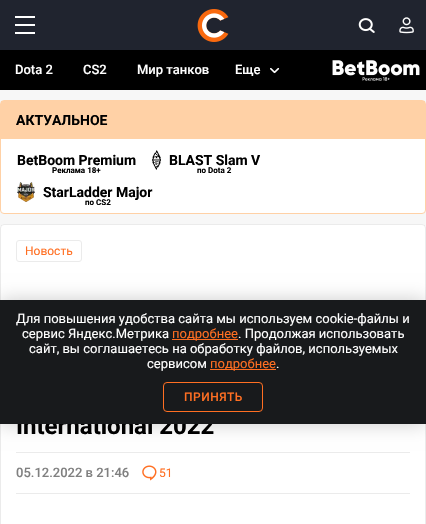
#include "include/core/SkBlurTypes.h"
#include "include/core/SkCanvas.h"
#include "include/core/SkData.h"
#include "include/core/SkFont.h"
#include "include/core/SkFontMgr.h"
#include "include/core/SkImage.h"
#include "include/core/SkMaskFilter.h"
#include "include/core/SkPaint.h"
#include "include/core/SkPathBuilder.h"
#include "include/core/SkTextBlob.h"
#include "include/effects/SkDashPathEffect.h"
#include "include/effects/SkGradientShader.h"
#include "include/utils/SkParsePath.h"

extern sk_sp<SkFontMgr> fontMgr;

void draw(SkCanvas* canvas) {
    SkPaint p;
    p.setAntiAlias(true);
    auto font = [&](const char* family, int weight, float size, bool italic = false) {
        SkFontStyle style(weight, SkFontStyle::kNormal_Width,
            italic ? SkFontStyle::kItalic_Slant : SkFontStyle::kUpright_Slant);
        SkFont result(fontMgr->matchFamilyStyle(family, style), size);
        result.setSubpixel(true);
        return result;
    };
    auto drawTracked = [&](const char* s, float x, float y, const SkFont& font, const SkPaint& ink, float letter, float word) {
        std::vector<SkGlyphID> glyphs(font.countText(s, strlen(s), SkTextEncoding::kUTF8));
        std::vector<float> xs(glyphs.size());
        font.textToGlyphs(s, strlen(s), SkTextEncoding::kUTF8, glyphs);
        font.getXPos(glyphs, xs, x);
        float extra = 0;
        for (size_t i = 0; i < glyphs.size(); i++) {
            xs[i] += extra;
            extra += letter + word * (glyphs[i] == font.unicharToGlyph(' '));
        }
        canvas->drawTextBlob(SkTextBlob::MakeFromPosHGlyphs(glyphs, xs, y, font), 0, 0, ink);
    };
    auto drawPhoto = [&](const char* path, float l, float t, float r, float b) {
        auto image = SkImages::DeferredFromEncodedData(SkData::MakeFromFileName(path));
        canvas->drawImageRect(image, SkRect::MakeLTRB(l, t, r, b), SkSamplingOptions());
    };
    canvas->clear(0xFF20242F);
    {
        const struct { float l, t, r, b; SkColor color; } items[] = {
            {15, 16, 35, 18, 0xFFFFFFFF},
            {15, 24, 35, 26, 0xFFFFFFFF},
            {15, 32, 35, 34, 0xFFFFFFFF},
        };
        for (auto [l, t, r, b, color] : items) {
            p.setColor(color);
            canvas->drawRect(SkRect::MakeLTRB(l, t, r, b), p);
        }
    }
    drawPhoto("media/1.png", 197, 9, 229, 42);
    drawPhoto("media/2.png", 358, 18, 375, 33);
    drawPhoto("media/3.png", 399, 17, 414, 34);
    p.setColor(0xFF000000);
    canvas->drawRect(SkRect::MakeLTRB(0, 50, 426, 90), p);
    auto font1 = font("Roboto", 500, 13);
    p.setColor(0xFFFFFFFF);
    {
        const struct { const char* s; float x, y; } items[] = {
            {"Dota 2", 15, 74},
            {"CS2", 83, 74},
            {"Мир танков", 137, 74},
            {"Еще", 235, 74},
        };
        for (auto [s, x, y] : items) {
            canvas->drawString(s, x, y, font1, p);
        }
    }
    drawPhoto("media/4.png", 270, 67, 280, 74);
    drawPhoto("media/5.png", 332, 60, 420, 81);
    p.setColor(0xFFF7F7F7);
    canvas->drawRect(SkRect::MakeLTRB(0, 90, 426, 228), p);
    p.setColor(0xFFFFFFFF);
    canvas->drawRoundRect(SkRect::MakeLTRB(0.5f, 100.5f, 425.5f, 213.5f), 3.5f, 3.5f, p);
    p.setStyle(SkPaint::kStroke_Style);
    p.setStrokeWidth(1);
    p.setColor(0xFFFFD1A6);
    canvas->drawRoundRect(SkRect::MakeLTRB(0.5f, 100.5f, 425.5f, 213.5f), 3.5f, 3.5f, p);
    p.setStyle(SkPaint::kFill_Style);
    canvas->drawRect(SkRect::MakeLTRB(1, 101, 425, 139), p);
    auto font2 = font("Roboto", 700, 14);
    p.setColor(0xFF000000);
    canvas->drawString("АКТУАЛЬНОЕ", 16, 125, font2, p);
    canvas->drawString("BetBoom Premium", 17, 165, font2, p);
    auto font3 = font("Roboto", 700, 8);
    canvas->drawString("Реклама 18+", 52, 173, font3, p);
    drawPhoto("media/6.png", 152, 150, 161, 170);
    canvas->drawString("BLAST Slam V", 169, 165, font2, p);
    canvas->drawString("по Dota 2", 197, 173, font3, p);
    drawPhoto("media/7.png", 17, 182, 35, 202);
    canvas->drawString("StarLadder Major", 43, 197, font2, p);
    canvas->drawString("по CS2", 85, 205, font3, p);
    p.setColor(0xFFFFFFFF);
    canvas->drawRoundRect(SkRect::MakeLTRB(0, 224, 426, 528), 4, 4, p);
    p.setStyle(SkPaint::kStroke_Style);
    p.setColor(0x14000000);
    canvas->drawRoundRect(SkRect::MakeLTRB(0.5f, 224.5f, 425.5f, 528.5f), 3.5f, 3.5f, p);
    p.setColor(0xFFEBEBEB);
    canvas->drawRoundRect(SkRect::MakeLTRB(16.5f, 240.5f, 81.5f, 261.5f), 2.5f, 2.5f, p);
    auto font4 = font("Roboto", 400, 12);
    p.setStyle(SkPaint::kFill_Style);
    p.setColor(0xFFFF6F22);
    canvas->drawString("Новость", 25, 255, font4, p);
    auto font5 = font("Roboto", 700, 24);
    p.setColor(0xFF000000);
    canvas->drawString("International 2022", 16, 434, font5, p);
    p.setColor(0xFFEBEBEB);
    canvas->drawRect(SkRect::MakeLTRB(16, 452, 410, 453), p);
    canvas->drawRect(SkRect::MakeLTRB(16, 493, 410, 494), p);
    p.setColor(0xFF808080);
    canvas->drawString("05.12.2022 в 21:46", 16, 477, font1, p);
    drawPhoto("media/8.png", 142, 465, 157, 481);
    p.setColor(0xFFFF6F22);
    canvas->drawString("51", 159, 477, font4, p);
    p.setColor(0x33000000);
    p.setMaskFilter(SkMaskFilter::MakeBlur(kNormal_SkBlurStyle, 9));
    canvas->drawRect(SkRect::MakeLTRB(0, 300, 426, 424), p);
    p.setMaskFilter(nullptr);
    p.setColor(0xFF181A1C);
    canvas->drawRect(SkRect::MakeLTRB(0, 300, 426, 424), p);
    auto font6 = font("Roboto", 400, 13);
    p.setColor(0xFFFFFFFF);
    canvas->drawString("Для повышения удобства сайта мы используем cookie-файлы и", 16, 323, font6, p);
    canvas->drawString("сервис Яндекс.Метрика", 22, 338, font6, p);
    p.setColor(0xFFFF6F22);
    canvas->drawRect(SkRect::MakeLTRB(172, 339, 238, 340), p);
    canvas->drawString("подробнее", 172, 338, font6, p);
    p.setColor(0xFFFFFFFF);
    {
        const struct { const char* s; float x, y; } items[] = {
            {". Продолжая использовать", 238, 338},
            {"сайт, вы соглашаетесь на обработку файлов, используемых", 29, 353},
            {"сервисом", 147, 368},
        };
        for (auto [s, x, y] : items) {
            canvas->drawString(s, x, y, font6, p);
        }
    }
    p.setColor(0xFFFF6F22);
    canvas->drawRect(SkRect::MakeLTRB(210, 369, 276, 370), p);
    canvas->drawString("подробнее", 210, 368, font6, p);
    p.setColor(0xFFFFFFFF);
    canvas->drawString(".", 276, 368, font6, p);
    p.setStyle(SkPaint::kStroke_Style);
    p.setColor(0xFFFF6F22);
    canvas->drawRoundRect(SkRect::MakeLTRB(163.5f, 382.5f, 262.5f, 411.5f), 3.5f, 3.5f, p);
    auto font7 = font("Roboto", 500, 12);
    p.setStyle(SkPaint::kFill_Style);
    drawTracked("ПРИНЯТЬ", 184, 401, font7, p, 0.5f, 0);
}
